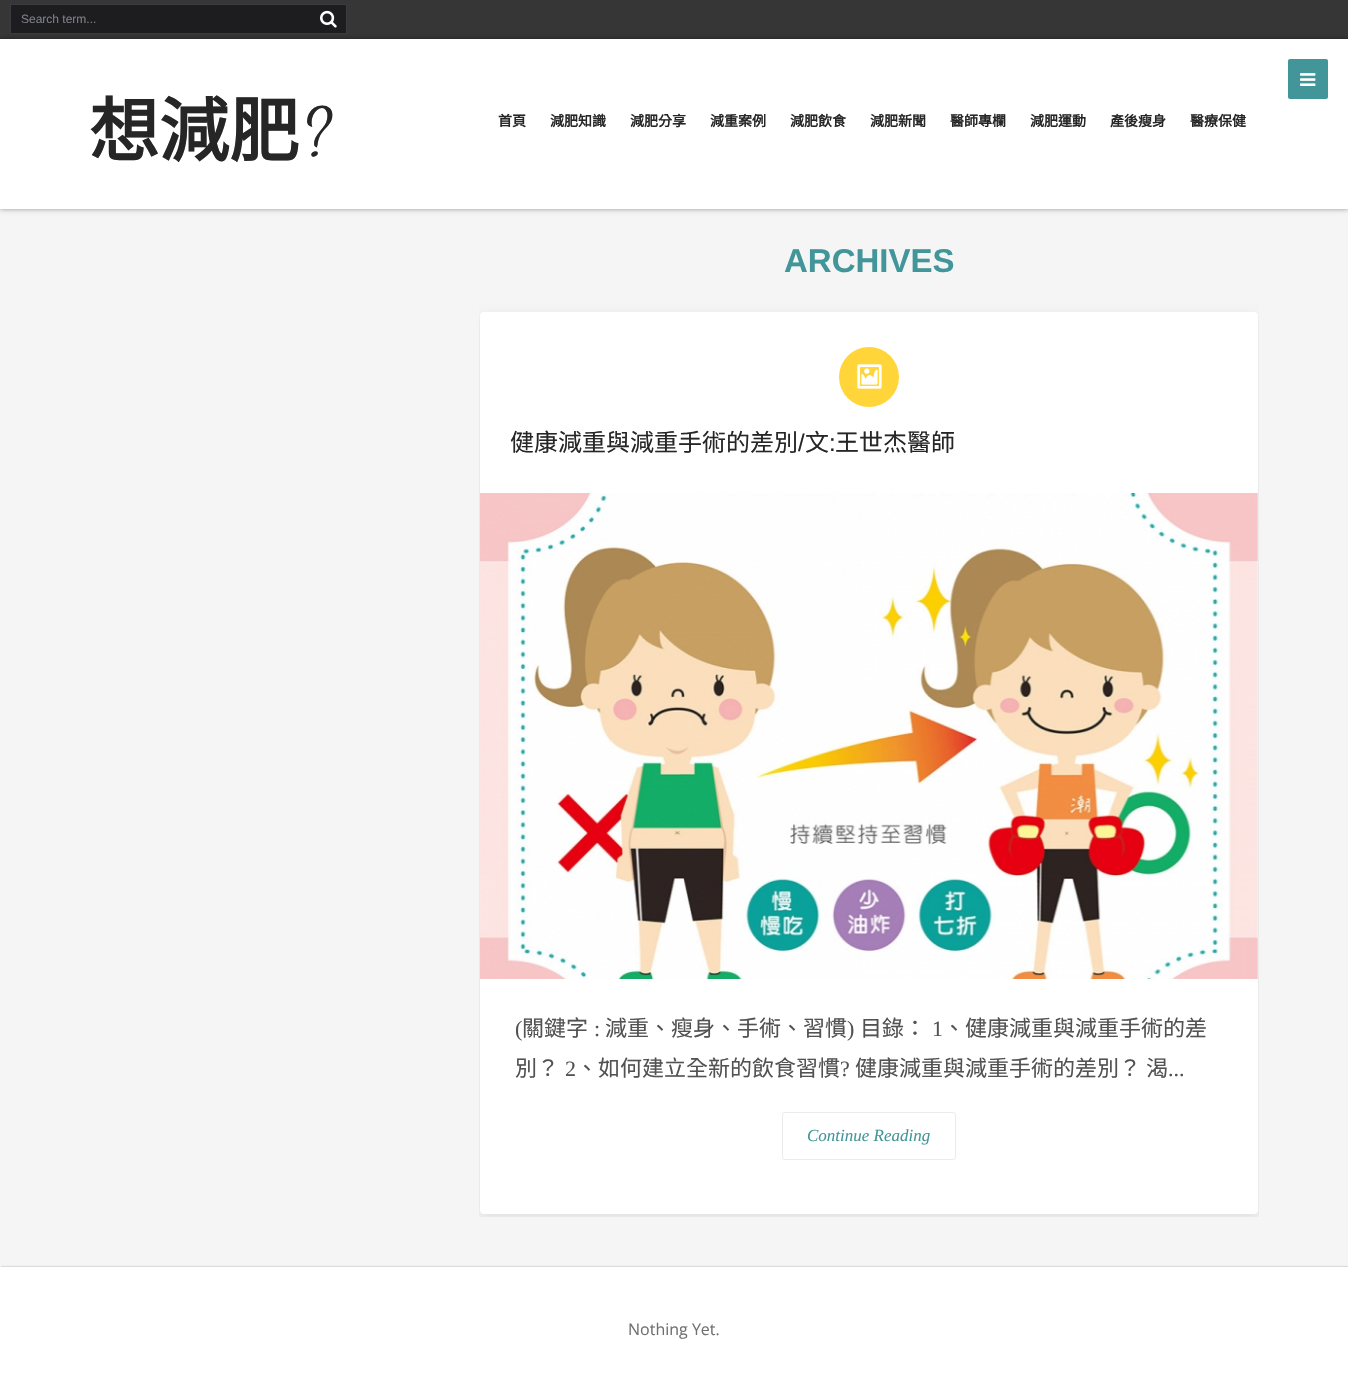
#include "include/core/SkBlurTypes.h"
#include "include/core/SkCanvas.h"
#include "include/core/SkData.h"
#include "include/core/SkFont.h"
#include "include/core/SkFontMgr.h"
#include "include/core/SkImage.h"
#include "include/core/SkMaskFilter.h"
#include "include/core/SkPaint.h"
#include "include/core/SkPathBuilder.h"
#include "include/core/SkTextBlob.h"
#include "include/effects/SkDashPathEffect.h"
#include "include/effects/SkGradientShader.h"
#include "include/utils/SkParsePath.h"

extern sk_sp<SkFontMgr> fontMgr;

void draw(SkCanvas* canvas) {
    SkPaint p;
    p.setAntiAlias(true);
    auto font = [&](const char* family, int weight, float size, bool italic = false) {
        SkFontStyle style(weight, SkFontStyle::kNormal_Width,
            italic ? SkFontStyle::kItalic_Slant : SkFontStyle::kUpright_Slant);
        SkFont result(fontMgr->matchFamilyStyle(family, style), size);
        result.setSubpixel(true);
        return result;
    };
    auto drawPhoto = [&](const char* path, float l, float t, float r, float b) {
        auto image = SkImages::DeferredFromEncodedData(SkData::MakeFromFileName(path));
        canvas->drawImageRect(image, SkRect::MakeLTRB(l, t, r, b), SkSamplingOptions());
    };
    canvas->clear(0xFFF5F5F5);
    p.setColor(0xFF363636);
    canvas->drawRect(SkRect::MakeLTRB(0, 0, 1348, 39), p);
    p.setColor(0xFF1D1D20);
    canvas->drawRect(SkRect::MakeLTRB(10.5f, 4.5f, 346.5f, 33.5f), p);
    p.setStyle(SkPaint::kStroke_Style);
    p.setStrokeWidth(1);
    p.setColor(0xFF3A3C41);
    canvas->drawRect(SkRect::MakeLTRB(10.5f, 4.5f, 346.5f, 33.5f), p);
    auto font1 = font("Liberation Sans", 400, 12);
    p.setStyle(SkPaint::kFill_Style);
    p.setColor(0xFF7D808A);
    canvas->drawString("Search term...", 21, 23, font1, p);
    drawPhoto("media/1.png", 320, 10, 337, 28);
    p.setColor(0x66000000);
    p.setMaskFilter(SkMaskFilter::MakeBlur(kNormal_SkBlurStyle, 2.5f));
    canvas->drawRect(SkRect::MakeLTRB(0, 39, 1348, 209), p);
    p.setMaskFilter(nullptr);
    p.setColor(0xFFFFFFFF);
    canvas->drawRect(SkRect::MakeLTRB(0, 39, 1348, 209), p);
    p.setColor(0xFF42969A);
    canvas->drawRoundRect(SkRect::MakeLTRB(1288, 59, 1328, 99), 2, 2, p);
    drawPhoto("media/2.png", 1300, 73, 1316, 86);
    auto font2 = font("Noto Sans CJK TC", 700, 70);
    p.setColor(0xFF262627);
    canvas->drawString("想減肥", 89, 156, font2, p);
    auto font3 = font("Dancing Script", 600, 70);
    canvas->drawString("?", 299, 156, font3, p);
    auto font4 = font("Noto Sans CJK TC", 700, 14);
    {
        const struct { const char* s; float x, y; } items[] = {
            {"首頁", 498, 126},
            {"減肥知識", 550, 126},
            {"減肥分享", 630, 126},
            {"減重案例", 710, 126},
            {"減肥飲食", 790, 126},
            {"減肥新聞", 870, 126},
            {"醫師專欄", 950, 126},
            {"減肥運動", 1030, 126},
            {"產後瘦身", 1110, 126},
            {"醫療保健", 1190, 126},
        };
        for (auto [s, x, y] : items) {
            canvas->drawString(s, x, y, font4, p);
        }
    }
    auto font5 = font("Liberation Sans", 700, 33);
    p.setColor(0xFF42969A);
    canvas->drawString("ARCHIVES", 784, 272, font5, p);
    canvas->save();
    canvas->clipRect(SkRect::MakeLTRB(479, 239, 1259, 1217));
    p.setColor(0x17000000);
    p.setMaskFilter(SkMaskFilter::MakeBlur(kNormal_SkBlurStyle, 5.5f));
    canvas->drawRoundRect(SkRect::MakeLTRB(480, 316, 1258, 1218), 4, 4, p);
    p.setMaskFilter(nullptr);
    canvas->restore();
    p.setColor(0xFFFFFFFF);
    canvas->drawRoundRect(SkRect::MakeLTRB(480, 312, 1258, 1214), 4, 4, p);
    p.setColor(0xFFFFD539);
    canvas->drawCircle(869, 377, 30, p);
    drawPhoto("media/3.png", 857, 364, 882, 389);
    auto font6 = font("Noto Sans CJK TC", 400, 24);
    p.setColor(0xFF262627);
    canvas->drawString("健康減重與減重手術的差別", 510, 451, font6, p);
    auto font7 = font("Liberation Sans", 400, 24);
    canvas->drawString("/", 798, 451, font7, p);
    canvas->drawString("文", 805, 451, font6, p);
    canvas->drawString(":", 829, 451, font7, p);
    canvas->drawString("王世杰醫師", 835, 451, font6, p);
    drawPhoto("media/4.png", 480, 493, 1258, 979);
    auto font8 = font("Liberation Serif", 400, 22);
    p.setColor(0xFF525252);
    canvas->drawString("(", 515, 1036, font8, p);
    auto font9 = font("Noto Sans CJK TC", 400, 22);
    canvas->drawString("關鍵字", 522, 1036, font9, p);
    canvas->drawString(":", 594, 1036, font8, p);
    canvas->drawString("減重、瘦身、手術、習慣", 605, 1036, font9, p);
    canvas->drawString(")", 847, 1036, font8, p);
    canvas->drawString("目錄：", 860, 1036, font9, p);
    canvas->drawString("1", 932, 1036, font8, p);
    canvas->drawString("、健康減重與減重手術的差", 943, 1036, font9, p);
    canvas->drawString("別？", 515, 1076, font9, p);
    canvas->drawString("2", 565, 1076, font8, p);
    canvas->drawString("、如何建立全新的飲食習慣", 576, 1076, font9, p);
    canvas->drawString("?", 840, 1076, font8, p);
    canvas->drawString("健康減重與減重手術的差別？ 渴", 855, 1076, font9, p);
    canvas->drawString("...", 1168, 1076, font8, p);
    p.setStyle(SkPaint::kStroke_Style);
    p.setColor(0xFFEBEBEB);
    canvas->drawRoundRect(SkRect::MakeLTRB(782.5f, 1112.5f, 955.5f, 1159.5f), 2.5f, 2.5f, p);
    auto font10 = font("Liberation Serif", 400, 17, true);
    p.setStyle(SkPaint::kFill_Style);
    p.setColor(0xFF42969A);
    canvas->drawString("Continue Reading", 807, 1141, font10, p);
    p.setColor(0x1A000000);
    p.setMaskFilter(SkMaskFilter::MakeBlur(kNormal_SkBlurStyle, 0.5f));
    canvas->drawRect(SkRect::MakeLTRB(1, 1266, 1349, 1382), p);
    p.setMaskFilter(nullptr);
    p.setColor(0xFFFFFFFF);
    canvas->drawRect(SkRect::MakeLTRB(0, 1267, 1348, 1380), p);
    auto font11 = font("Open Sans", 400, 16);
    p.setColor(0xFF707070);
    canvas->drawString("Nothing Yet.", 628, 1335, font11, p);
}
